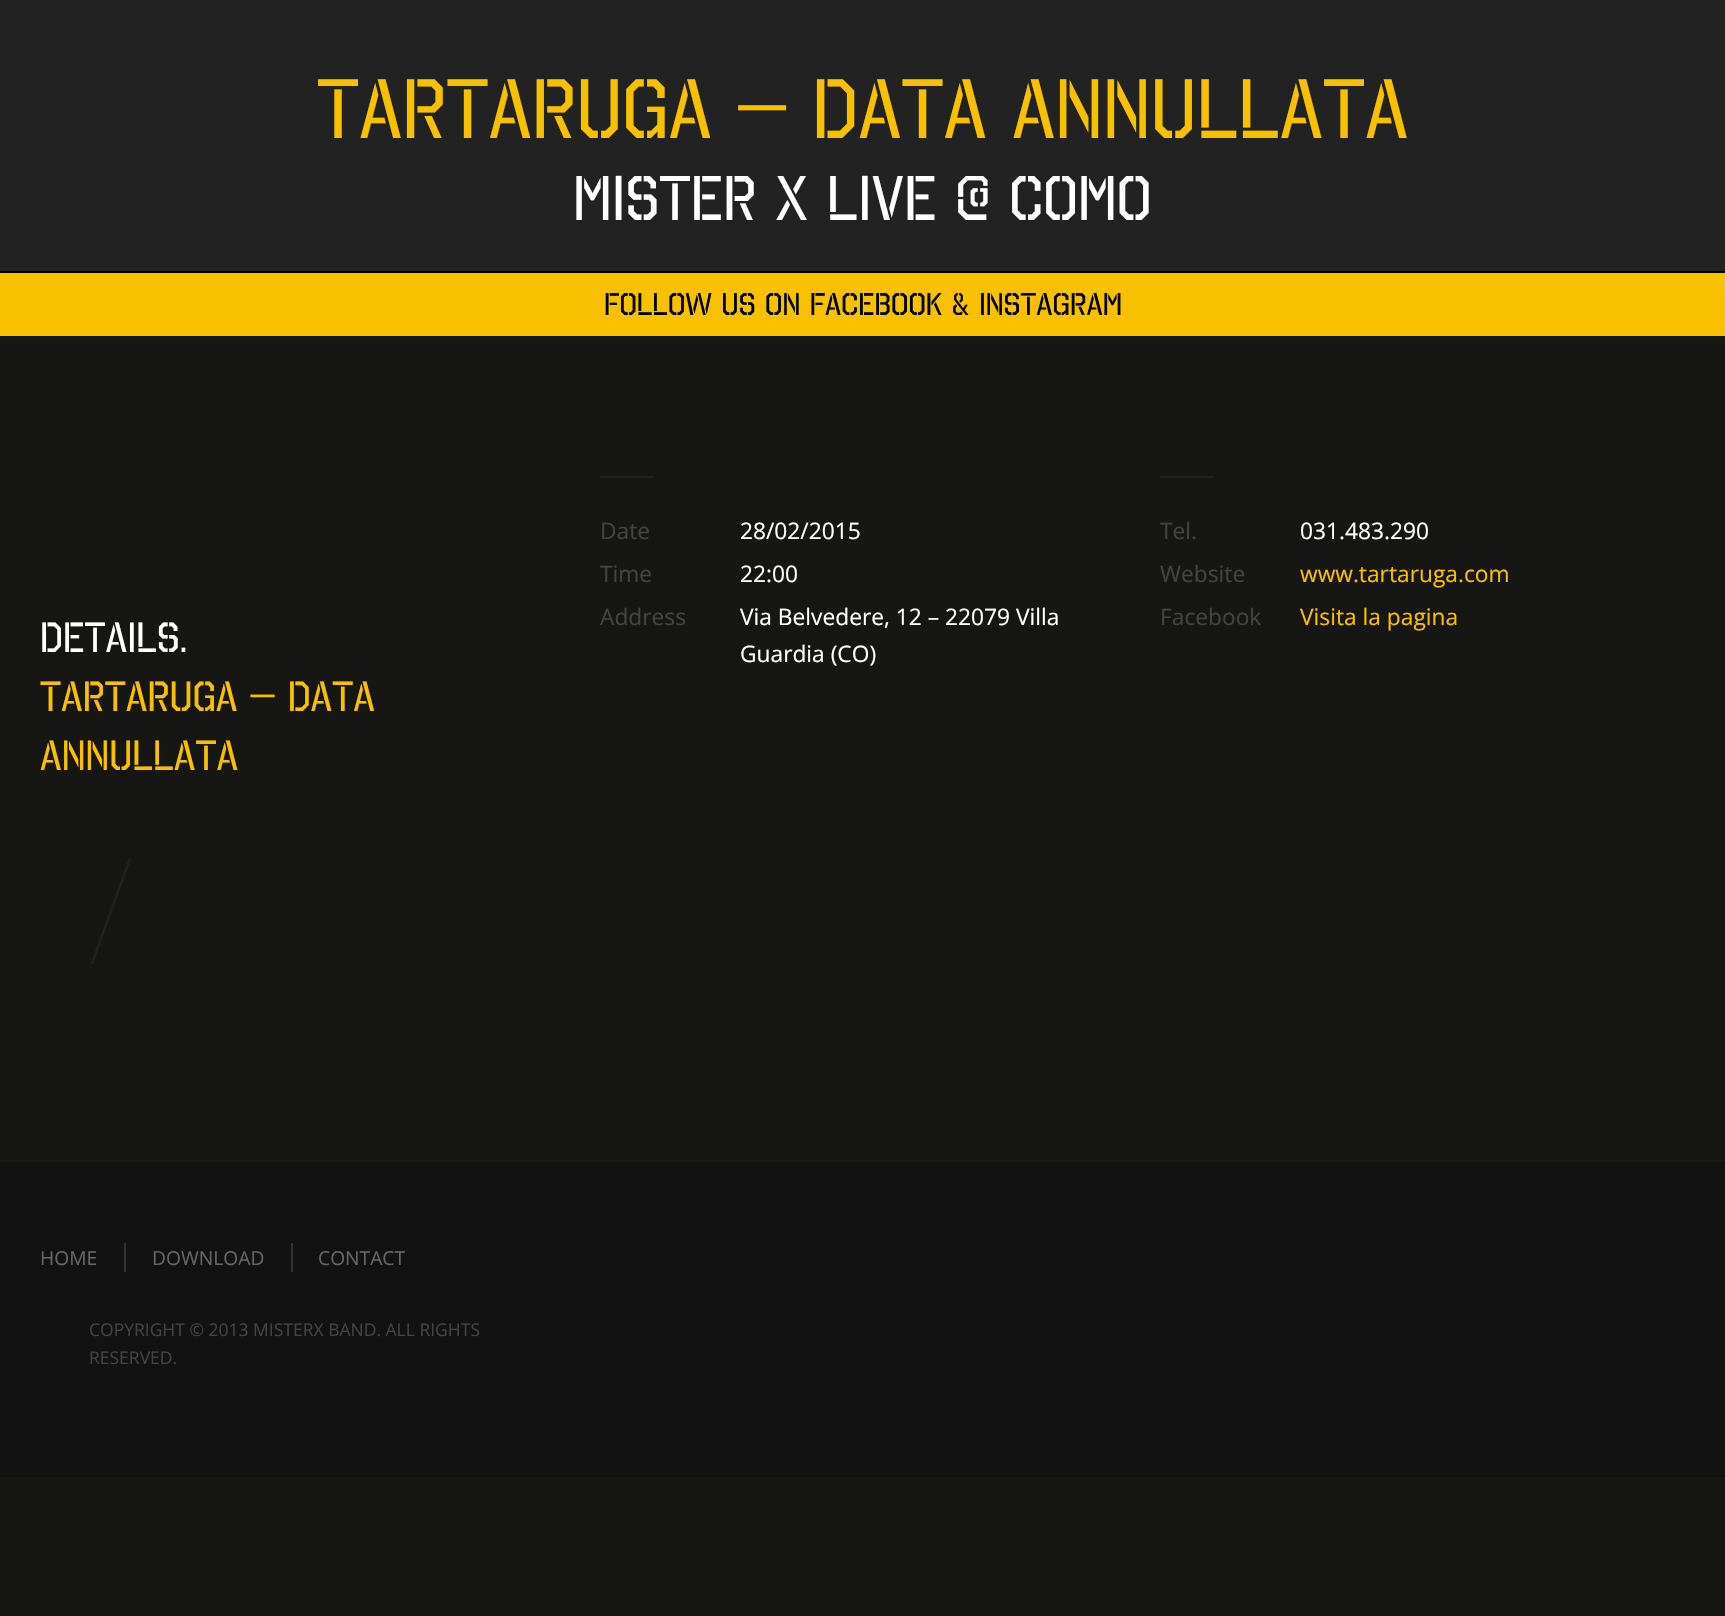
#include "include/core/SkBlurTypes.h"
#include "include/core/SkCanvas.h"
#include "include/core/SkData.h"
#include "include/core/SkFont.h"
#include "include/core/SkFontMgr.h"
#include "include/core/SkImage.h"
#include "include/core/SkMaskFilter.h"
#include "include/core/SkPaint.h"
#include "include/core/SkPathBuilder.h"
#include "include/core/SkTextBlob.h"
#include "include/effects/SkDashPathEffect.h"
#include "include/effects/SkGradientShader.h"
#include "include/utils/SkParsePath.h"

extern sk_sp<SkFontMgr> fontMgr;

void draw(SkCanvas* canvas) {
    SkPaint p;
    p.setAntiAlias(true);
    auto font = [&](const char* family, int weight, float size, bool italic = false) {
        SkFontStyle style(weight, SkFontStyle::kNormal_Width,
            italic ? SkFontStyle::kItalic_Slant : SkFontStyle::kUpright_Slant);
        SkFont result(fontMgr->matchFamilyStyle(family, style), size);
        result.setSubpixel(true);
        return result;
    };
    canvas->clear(0xFF161614);
    p.setColor(0xFF222222);
    canvas->drawRect(SkRect::MakeLTRB(0, 0, 1725, 271), p);
    p.setColor(0xFF000000);
    canvas->drawRect(SkRect::MakeLTRB(0, 271, 1725, 273), p);
    auto font1 = font("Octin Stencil", 400, 84);
    p.setColor(0xFFF8C100);
    canvas->drawString("Tartaruga – DATA ANNULLATA", 317, 138, font1, p);
    auto font2 = font("Octin Stencil", 400, 63);
    p.setColor(0xFFFFFFFF);
    canvas->drawString("Mister X Live @ Como", 573, 220, font2, p);
    p.setColor(0xFFF8C100);
    canvas->drawRect(SkRect::MakeLTRB(0, 273, 1725, 336), p);
    auto font3 = font("Octin Stencil", 400, 31.5f);
    p.setColor(0xFF000000);
    canvas->drawString("FOLLOW US ON FACEBOOK & INSTAGRAM", 604, 315, font3, p);
    p.setColor(0xFF222222);
    canvas->drawRect(SkRect::MakeLTRB(600, 476, 653, 478), p);
    auto font4 = font("Open Sans", 400, 22.75f);
    p.setColor(0xFF444444);
    canvas->drawString("Date", 600, 539, font4, p);
    p.setColor(0xFFFFFFFF);
    canvas->drawString("28/02/2015", 740, 539, font4, p);
    p.setColor(0xFF444444);
    canvas->drawString("Time", 600, 582, font4, p);
    p.setColor(0xFFFFFFFF);
    canvas->drawString("22:00", 740, 582, font4, p);
    p.setColor(0xFF444444);
    canvas->drawString("Address", 600, 625, font4, p);
    p.setColor(0xFFFFFFFF);
    canvas->drawString("Via Belvedere, 12 – 22079 Villa", 740, 625, font4, p);
    canvas->drawString("Guardia (CO)", 740, 662, font4, p);
    p.setColor(0xFF222222);
    canvas->drawRect(SkRect::MakeLTRB(1160, 476, 1213, 478), p);
    p.setColor(0xFF444444);
    canvas->drawString("Tel.", 1160, 539, font4, p);
    p.setColor(0xFFFFFFFF);
    canvas->drawString("031.483.290", 1300, 539, font4, p);
    p.setColor(0xFF444444);
    canvas->drawString("Website", 1160, 582, font4, p);
    p.setColor(0xFFF8C100);
    canvas->drawString("www.tartaruga.com", 1300, 582, font4, p);
    p.setColor(0xFF444444);
    canvas->drawString("Facebook", 1160, 625, font4, p);
    p.setColor(0xFFF8C100);
    canvas->drawString("Visita la pagina", 1300, 625, font4, p);
    auto font5 = font("Octin Stencil", 400, 42);
    p.setColor(0xFFFFFFFF);
    canvas->drawString("Details.", 40, 652, font5, p);
    p.setColor(0xFFF8C100);
    canvas->drawString("Tartaruga – DATA", 40, 711, font5, p);
    canvas->drawString("ANNULLATA", 40, 770, font5, p);
    p.setColor(0xFF222222);
    canvas->drawPath(SkPathBuilder().moveTo(129, 858).lineTo(131, 859).lineTo(93, 964).lineTo(91, 963).close().detach(), p);
    p.setColor(0xFF121212);
    canvas->drawRect(SkRect::MakeLTRB(0, 1162, 1725, 1477), p);
    p.setColor(0xFF191919);
    canvas->drawRect(SkRect::MakeLTRB(0, 1160, 1725, 1162), p);
    auto font6 = font("Open Sans", 400, 19.25f);
    p.setColor(0xFF666666);
    canvas->drawString("HOME", 40, 1265, font6, p);
    p.setColor(0xFF333333);
    canvas->drawRect(SkRect::MakeLTRB(124, 1243, 126, 1272), p);
    p.setColor(0xFF666666);
    canvas->drawString("DOWNLOAD", 152, 1265, font6, p);
    p.setColor(0xFF333333);
    canvas->drawRect(SkRect::MakeLTRB(291, 1243, 293, 1272), p);
    p.setColor(0xFF666666);
    canvas->drawString("CONTACT", 318, 1265, font6, p);
    auto font7 = font("Open Sans", 400, 17.5f);
    p.setColor(0xFF444444);
    canvas->drawString("COPYRIGHT © 2013 MISTERX BAND. ALL RIGHTS", 89, 1336, font7, p);
    canvas->drawString("RESERVED.", 89, 1364, font7, p);
}
